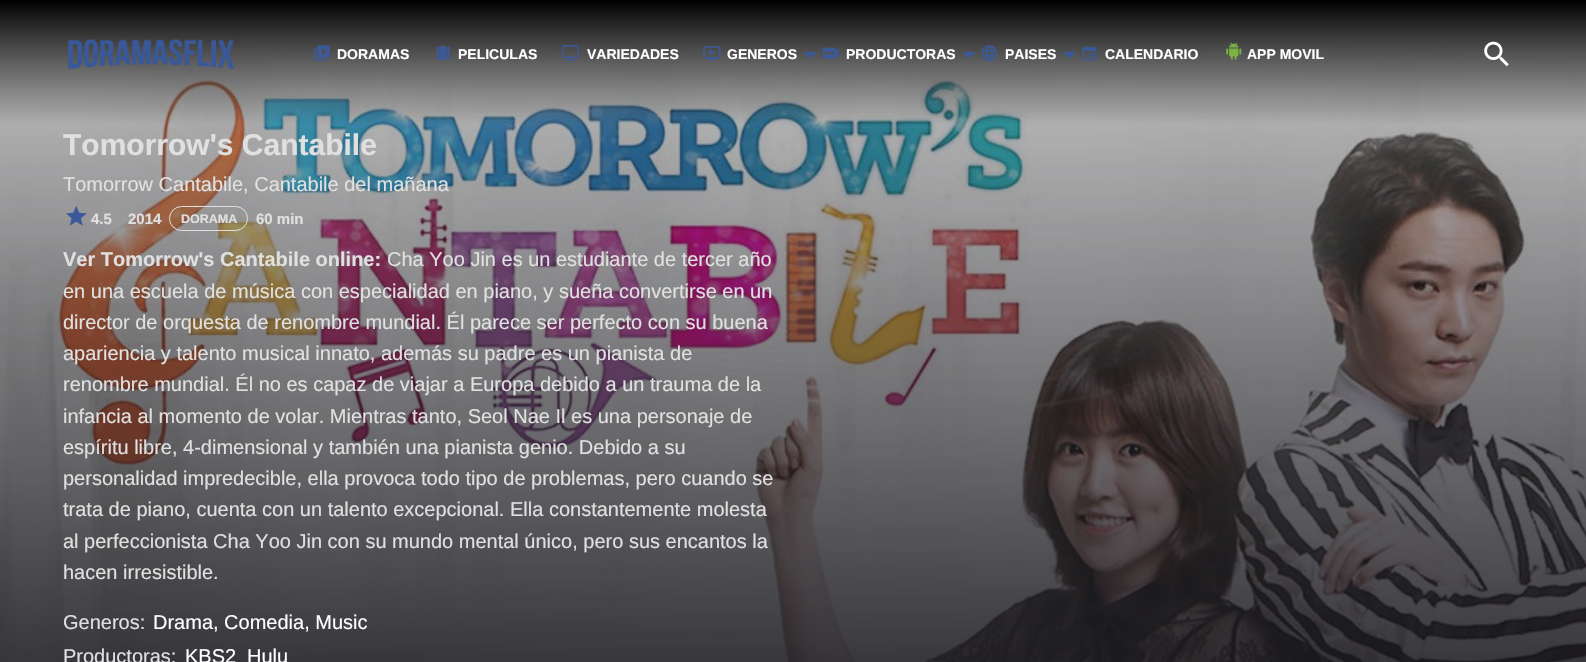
#include "include/core/SkBlurTypes.h"
#include "include/core/SkCanvas.h"
#include "include/core/SkData.h"
#include "include/core/SkFont.h"
#include "include/core/SkFontMgr.h"
#include "include/core/SkImage.h"
#include "include/core/SkMaskFilter.h"
#include "include/core/SkPaint.h"
#include "include/core/SkPathBuilder.h"
#include "include/core/SkTextBlob.h"
#include "include/effects/SkDashPathEffect.h"
#include "include/effects/SkGradientShader.h"
#include "include/utils/SkParsePath.h"

extern sk_sp<SkFontMgr> fontMgr;

void draw(SkCanvas* canvas) {
    SkPaint p;
    p.setAntiAlias(true);
    auto font = [&](const char* family, int weight, float size, bool italic = false) {
        SkFontStyle style(weight, SkFontStyle::kNormal_Width,
            italic ? SkFontStyle::kItalic_Slant : SkFontStyle::kUpright_Slant);
        SkFont result(fontMgr->matchFamilyStyle(family, style), size);
        result.setSubpixel(true);
        return result;
    };
    auto drawPhoto = [&](const char* path, float l, float t, float r, float b) {
        auto image = SkImages::DeferredFromEncodedData(SkData::MakeFromFileName(path));
        canvas->drawImageRect(image, SkRect::MakeLTRB(l, t, r, b), SkSamplingOptions());
    };
    canvas->clear(0xFFFFFFFF);
    drawPhoto("media/11.png", 0, 0, 1586, 662);
    drawPhoto("media/1.png", 68, 39, 235, 69);
    drawPhoto("media/2.png", 314, 45, 330, 61);
    auto font1 = font("Liberation Sans", 700, 14);
    p.setColor(0xFFFFFFFF);
    canvas->drawString("DORAMAS", 337, 59, font1, p);
    drawPhoto("media/3.png", 436, 46, 450, 61);
    canvas->drawString("PELICULAS", 458, 59, font1, p);
    drawPhoto("media/4.png", 562, 45, 579, 61);
    canvas->drawString("VARIEDADES", 587, 59, font1, p);
    drawPhoto("media/5.png", 703, 46, 721, 61);
    canvas->drawString("GENEROS", 727, 59, font1, p);
    p.setColor(0xFF3B5998);
    canvas->drawPath(SkPathBuilder().moveTo(804, 52).lineTo(810.5f, 58.5f).lineTo(817, 52).close().detach(), p);
    drawPhoto("media/6.png", 822, 47, 839, 59);
    p.setColor(0xFFFFFFFF);
    canvas->drawString("PRODUCTORAS", 846, 59, font1, p);
    p.setColor(0xFF3B5998);
    canvas->drawPath(SkPathBuilder().moveTo(963, 52).lineTo(969.5f, 58.5f).lineTo(976, 52).close().detach(), p);
    drawPhoto("media/7.png", 981, 45, 998, 61);
    p.setColor(0xFFFFFFFF);
    canvas->drawString("PAISES", 1005, 59, font1, p);
    p.setColor(0xFF3B5998);
    canvas->drawPath(SkPathBuilder().moveTo(1063, 52).lineTo(1069.5f, 58.5f).lineTo(1076, 52).close().detach(), p);
    drawPhoto("media/8.png", 1082, 46, 1097, 61);
    p.setColor(0xFFFFFFFF);
    canvas->drawString("CALENDARIO", 1105, 59, font1, p);
    drawPhoto("media/9.png", 1226, 42, 1242, 60);
    canvas->drawString("APP MOVIL", 1247, 59, font1, p);
    drawPhoto("media/10.png", 1484, 41, 1509, 67);
    auto font2 = font("Liberation Sans", 700, 30);
    p.setColor(0xFFE0E0E0);
    canvas->drawString("Tomorrow's Cantabile", 63, 155, font2, p);
    auto font3 = font("Liberation Sans", 400, 20);
    canvas->drawString("Tomorrow Cantabile, Cantabile del mañana", 63, 191, font3, p);
    drawPhoto("media/12.png", 66, 206, 87, 226);
    auto font4 = font("Liberation Sans", 700, 15);
    canvas->drawString("4.5", 91, 224, font4, p);
    canvas->drawString("2014", 128, 224, font4, p);
    p.setStyle(SkPaint::kStroke_Style);
    p.setStrokeWidth(1);
    canvas->drawRoundRect(SkRect::MakeLTRB(169.5f, 206.5f, 247.5f, 230.5f), 12, 12, p);
    auto font5 = font("Liberation Sans", 700, 12.5f);
    p.setStyle(SkPaint::kFill_Style);
    canvas->drawString("DORAMA", 181, 223, font5, p);
    canvas->drawString("60 min", 256, 224, font4, p);
    auto font6 = font("Liberation Sans", 700, 20);
    canvas->drawString("Ver Tomorrow's Cantabile online:", 63, 266, font6, p);
    {
        const struct { const char* s; float x, y; } items[] = {
            {"Cha Yoo Jin es un estudiante de tercer año", 387, 266},
            {"en una escuela de música con especialidad en piano, y sueña convertirse en un", 63, 298},
            {"director de orquesta de renombre mundial. Él parece ser perfecto con su buena", 63, 329},
            {"apariencia y talento musical innato, además su padre es un pianista de", 63, 360},
            {"renombre mundial. Él no es capaz de viajar a Europa debido a un trauma de la", 63, 391},
            {"infancia al momento de volar. Mientras tanto, Seol Nae Il es una personaje de", 63, 423},
            {"espíritu libre, 4-dimensional y también una pianista genio. Debido a su", 63, 454},
            {"personalidad impredecible, ella provoca todo tipo de problemas, pero cuando se", 63, 485},
            {"trata de piano, cuenta con un talento excepcional. Ella constantemente molesta", 63, 516},
            {"al perfeccionista Cha Yoo Jin con su mundo mental único, pero sus encantos la", 63, 548},
            {"hacen irresistible.", 63, 579},
            {"Generos:", 63, 629},
        };
        for (auto [s, x, y] : items) {
            canvas->drawString(s, x, y, font3, p);
        }
    }
    p.setColor(0xFFFFFFFF);
    canvas->drawString("Drama, Comedia, Music", 153, 629, font3, p);
    p.setColor(0xFFE0E0E0);
    canvas->drawString("Productoras:", 63, 663, font3, p);
    p.setColor(0xFFFFFFFF);
    canvas->drawString("KBS2", 185, 663, font3, p);
    canvas->drawString("Hulu", 247, 663, font3, p);
}
